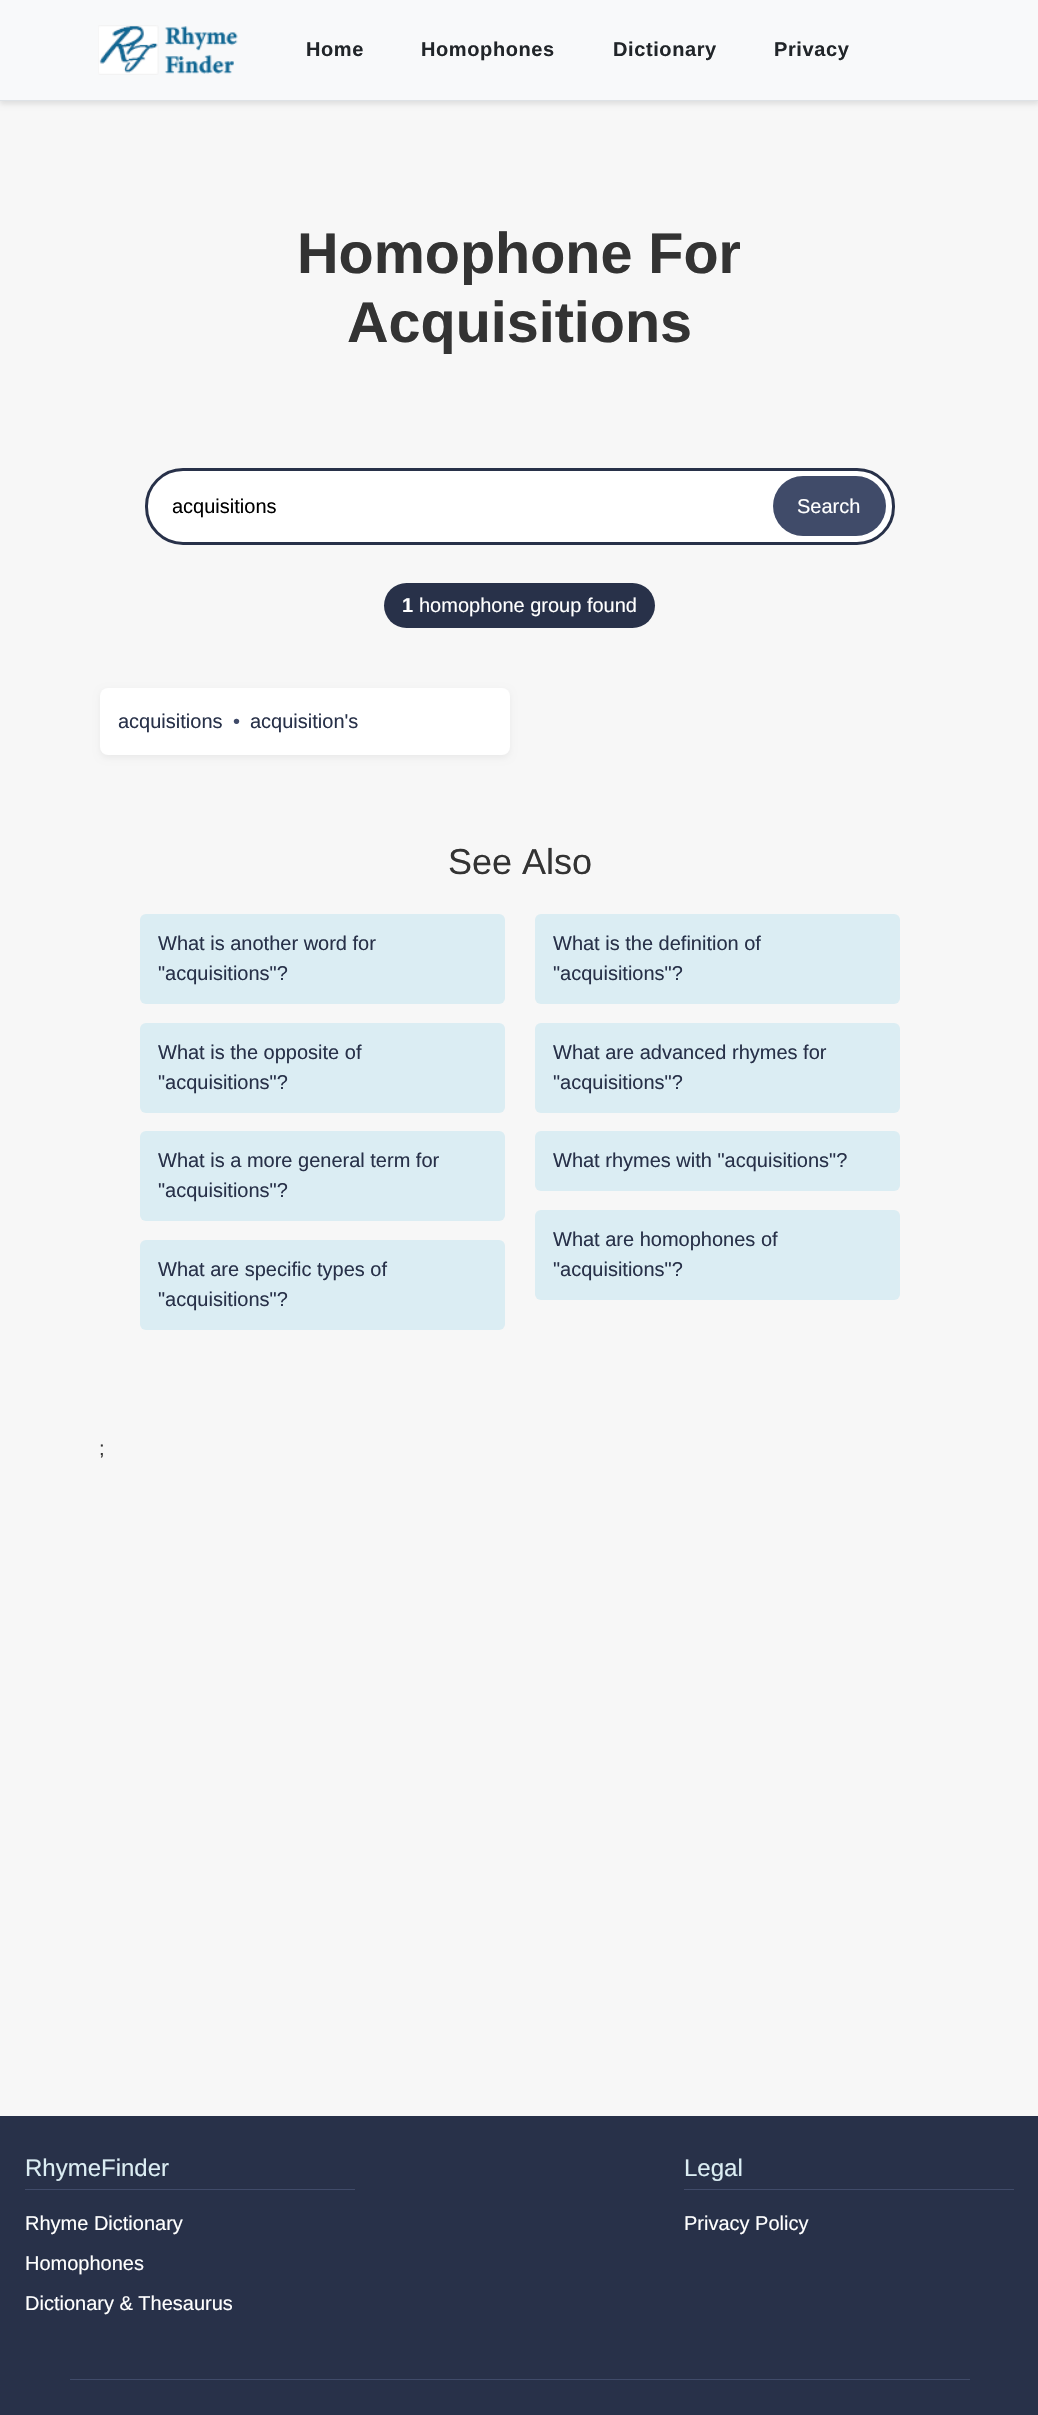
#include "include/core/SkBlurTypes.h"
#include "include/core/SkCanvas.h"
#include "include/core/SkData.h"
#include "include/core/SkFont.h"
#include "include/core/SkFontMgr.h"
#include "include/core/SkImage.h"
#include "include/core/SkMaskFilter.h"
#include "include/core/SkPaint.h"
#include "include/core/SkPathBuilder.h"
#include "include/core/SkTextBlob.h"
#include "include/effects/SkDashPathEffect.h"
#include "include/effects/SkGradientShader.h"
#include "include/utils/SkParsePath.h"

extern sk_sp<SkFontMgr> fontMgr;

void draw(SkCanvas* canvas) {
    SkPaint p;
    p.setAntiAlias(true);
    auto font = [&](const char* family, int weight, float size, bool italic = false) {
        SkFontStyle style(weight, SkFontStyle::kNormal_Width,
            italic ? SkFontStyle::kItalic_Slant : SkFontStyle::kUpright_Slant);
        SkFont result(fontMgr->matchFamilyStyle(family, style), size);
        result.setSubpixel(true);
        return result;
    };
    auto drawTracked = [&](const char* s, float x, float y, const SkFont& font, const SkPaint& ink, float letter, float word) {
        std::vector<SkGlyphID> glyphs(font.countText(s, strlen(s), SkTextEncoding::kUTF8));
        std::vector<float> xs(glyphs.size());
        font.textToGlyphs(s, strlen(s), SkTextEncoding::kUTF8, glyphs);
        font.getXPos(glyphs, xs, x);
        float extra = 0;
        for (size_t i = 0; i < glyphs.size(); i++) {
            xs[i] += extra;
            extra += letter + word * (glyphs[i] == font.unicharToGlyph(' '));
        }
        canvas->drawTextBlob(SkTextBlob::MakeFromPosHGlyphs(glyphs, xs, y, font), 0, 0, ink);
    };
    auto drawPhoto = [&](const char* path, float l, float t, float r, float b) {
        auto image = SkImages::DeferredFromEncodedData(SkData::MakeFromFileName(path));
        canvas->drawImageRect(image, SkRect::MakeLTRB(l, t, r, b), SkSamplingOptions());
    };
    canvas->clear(0xFFF7F7F7);
    p.setColor(0x1A000000);
    p.setMaskFilter(SkMaskFilter::MakeBlur(kNormal_SkBlurStyle, 2.5f));
    canvas->drawRect(SkRect::MakeLTRB(0, 3, 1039, 104), p);
    p.setMaskFilter(nullptr);
    p.setColor(0xFFF8F9FA);
    canvas->drawRect(SkRect::MakeLTRB(0, 0, 1038, 100), p);
    p.setColor(0xFFDEE2E6);
    canvas->drawRect(SkRect::MakeLTRB(0, 100, 1038, 101), p);
    drawPhoto("media/1.png", 98, 25, 238, 75);
    auto font1 = font("Liberation Sans", 700, 20);
    p.setColor(0xFF212529);
    {
        const struct { const char* s; float x, y; } items[] = {
            {"Home", 306, 56},
            {"Homophones", 421, 56},
            {"Dictionary", 613, 56},
            {"Privacy", 774, 56},
        };
        for (auto [s, x, y] : items) {
            drawTracked(s, x, y, font1, p, 0.6f, 0);
        }
    }
    auto font2 = font("Liberation Sans", 700, 57.5f);
    p.setColor(0xFF333333);
    canvas->drawString("Homophone For", 297, 273, font2, p);
    canvas->drawString("Acquisitions", 347, 342, font2, p);
    p.setColor(0xFFFFFFFF);
    canvas->drawRoundRect(SkRect::MakeLTRB(146.5f, 469.5f, 893.5f, 543.5f), 36.5f, 36.5f, p);
    p.setStyle(SkPaint::kStroke_Style);
    p.setStrokeWidth(3);
    p.setColor(0xFF283149);
    canvas->drawRoundRect(SkRect::MakeLTRB(146.5f, 469.5f, 893.5f, 543.5f), 36.5f, 36.5f, p);
    auto font3 = font("Liberation Sans", 400, 20);
    p.setStyle(SkPaint::kFill_Style);
    p.setColor(0xFF000000);
    canvas->drawString("acquisitions", 172, 513, font3, p);
    p.setColor(0xFF404B69);
    canvas->drawRoundRect(SkRect::MakeLTRB(773, 476, 886, 536), 30, 30, p);
    p.setColor(0xFFFFFFFF);
    canvas->drawString("Search", 797, 513, font3, p);
    p.setColor(0xFF283149);
    canvas->drawRoundRect(SkRect::MakeLTRB(384, 583, 655, 628), 22.5f, 22.5f, p);
    p.setColor(0xFFFFFFFF);
    canvas->drawString("1", 402, 612, font1, p);
    canvas->drawString("homophone group found", 419, 612, font3, p);
    p.setColor(0x0D000000);
    p.setMaskFilter(SkMaskFilter::MakeBlur(kNormal_SkBlurStyle, 3));
    canvas->drawRoundRect(SkRect::MakeLTRB(100, 690, 510, 758), 8, 8, p);
    p.setMaskFilter(nullptr);
    p.setColor(0xFFFFFFFF);
    canvas->drawRoundRect(SkRect::MakeLTRB(100, 688, 510, 755), 8, 8, p);
    p.setColor(0xFF283149);
    canvas->drawString("acquisitions", 118, 728, font3, p);
    p.setColor(0xFF404B69);
    canvas->drawString("•", 233, 728, font3, p);
    p.setColor(0xFF283149);
    canvas->drawString("acquisition's", 250, 728, font3, p);
    auto font4 = font("Liberation Sans", 400, 36);
    p.setColor(0xFF333333);
    canvas->drawString("See Also", 448, 874, font4, p);
    p.setColor(0xFFDBEDF3);
    canvas->drawRoundRect(SkRect::MakeLTRB(140, 914, 505, 1004), 6, 6, p);
    p.setColor(0xFF283149);
    canvas->drawString("What is another word for", 158, 950, font3, p);
    canvas->drawString("\"acquisitions\"?", 158, 980, font3, p);
    p.setColor(0xFFDBEDF3);
    canvas->drawRoundRect(SkRect::MakeLTRB(140, 1023, 505, 1113), 6, 6, p);
    p.setColor(0xFF283149);
    canvas->drawString("What is the opposite of", 158, 1059, font3, p);
    canvas->drawString("\"acquisitions\"?", 158, 1089, font3, p);
    p.setColor(0xFFDBEDF3);
    canvas->drawRoundRect(SkRect::MakeLTRB(140, 1131, 505, 1221), 6, 6, p);
    p.setColor(0xFF283149);
    canvas->drawString("What is a more general term for", 158, 1167, font3, p);
    canvas->drawString("\"acquisitions\"?", 158, 1197, font3, p);
    p.setColor(0xFFDBEDF3);
    canvas->drawRoundRect(SkRect::MakeLTRB(140, 1240, 505, 1330), 6, 6, p);
    p.setColor(0xFF283149);
    canvas->drawString("What are specific types of", 158, 1276, font3, p);
    canvas->drawString("\"acquisitions\"?", 158, 1306, font3, p);
    p.setColor(0xFFDBEDF3);
    canvas->drawRoundRect(SkRect::MakeLTRB(535, 914, 900, 1004), 6, 6, p);
    p.setColor(0xFF283149);
    canvas->drawString("What is the definition of", 553, 950, font3, p);
    canvas->drawString("\"acquisitions\"?", 553, 980, font3, p);
    p.setColor(0xFFDBEDF3);
    canvas->drawRoundRect(SkRect::MakeLTRB(535, 1023, 900, 1113), 6, 6, p);
    p.setColor(0xFF283149);
    canvas->drawString("What are advanced rhymes for", 553, 1059, font3, p);
    canvas->drawString("\"acquisitions\"?", 553, 1089, font3, p);
    p.setColor(0xFFDBEDF3);
    canvas->drawRoundRect(SkRect::MakeLTRB(535, 1131, 900, 1191), 6, 6, p);
    p.setColor(0xFF283149);
    canvas->drawString("What rhymes with \"acquisitions\"?", 553, 1167, font3, p);
    p.setColor(0xFFDBEDF3);
    canvas->drawRoundRect(SkRect::MakeLTRB(535, 1210, 900, 1300), 6, 6, p);
    p.setColor(0xFF283149);
    canvas->drawString("What are homophones of", 553, 1246, font3, p);
    canvas->drawString("\"acquisitions\"?", 553, 1276, font3, p);
    p.setColor(0xFF333333);
    canvas->drawString(";", 99, 1455, font3, p);
    p.setColor(0xFF283149);
    canvas->drawRect(SkRect::MakeLTRB(0, 2116, 1038, 2415), p);
    p.setColor(0xFF404B69);
    canvas->drawRect(SkRect::MakeLTRB(25, 2189, 355, 2190), p);
    auto font5 = font("Liberation Sans", 400, 24);
    p.setColor(0xFFDBEDF3);
    canvas->drawString("RhymeFinder", 25, 2176, font5, p);
    p.setColor(0xFFFFFFFF);
    {
        const struct { const char* s; float x, y; } items[] = {
            {"Rhyme Dictionary", 25, 2230},
            {"Homophones", 25, 2270},
            {"Dictionary & Thesaurus", 25, 2310},
        };
        for (auto [s, x, y] : items) {
            canvas->drawString(s, x, y, font3, p);
        }
    }
    p.setColor(0xFF404B69);
    canvas->drawRect(SkRect::MakeLTRB(684, 2189, 1014, 2190), p);
    p.setColor(0xFFDBEDF3);
    canvas->drawString("Legal", 684, 2176, font5, p);
    p.setColor(0xFFFFFFFF);
    canvas->drawString("Privacy Policy", 684, 2230, font3, p);
    p.setColor(0xFF404B69);
    canvas->drawRect(SkRect::MakeLTRB(70, 2379, 970, 2380), p);
}
